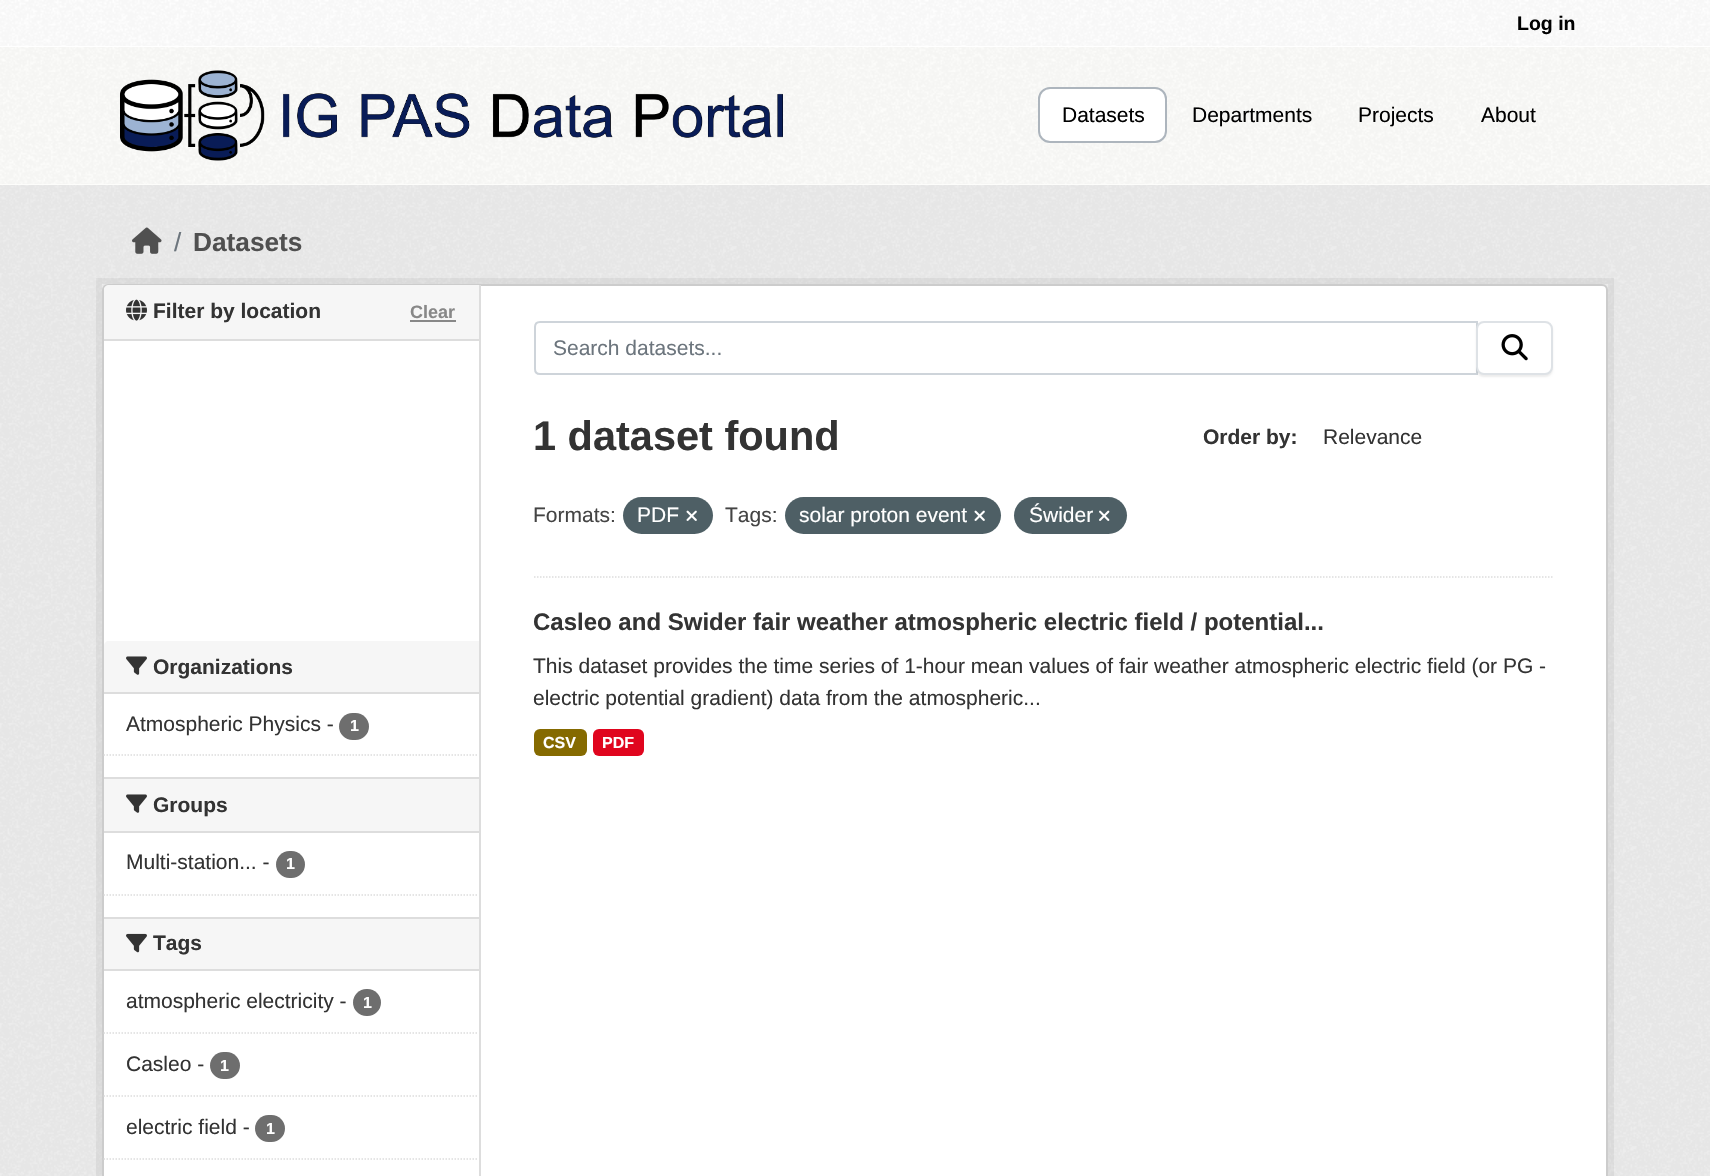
#include "include/core/SkBlurTypes.h"
#include "include/core/SkCanvas.h"
#include "include/core/SkData.h"
#include "include/core/SkFont.h"
#include "include/core/SkFontMgr.h"
#include "include/core/SkImage.h"
#include "include/core/SkMaskFilter.h"
#include "include/core/SkPaint.h"
#include "include/core/SkPathBuilder.h"
#include "include/core/SkTextBlob.h"
#include "include/effects/SkDashPathEffect.h"
#include "include/effects/SkGradientShader.h"
#include "include/utils/SkParsePath.h"

extern sk_sp<SkFontMgr> fontMgr;

void draw(SkCanvas* canvas) {
    SkPaint p;
    p.setAntiAlias(true);
    auto font = [&](const char* family, int weight, float size, bool italic = false) {
        SkFontStyle style(weight, SkFontStyle::kNormal_Width,
            italic ? SkFontStyle::kItalic_Slant : SkFontStyle::kUpright_Slant);
        SkFont result(fontMgr->matchFamilyStyle(family, style), size);
        result.setSubpixel(true);
        return result;
    };
    auto drawPhoto = [&](const char* path, float l, float t, float r, float b) {
        auto image = SkImages::DeferredFromEncodedData(SkData::MakeFromFileName(path));
        canvas->drawImageRect(image, SkRect::MakeLTRB(l, t, r, b), SkSamplingOptions());
    };
    canvas->clear(0xFFFFFFFF);
    drawPhoto("media/1.png", 0, 0, 1710, 46);
    auto font1 = font("Liberation Sans", 700, 19.5f);
    p.setColor(0xFF000000);
    canvas->drawString("Log in", 1517, 30, font1, p);
    p.setColor(0xFFFDFDFB);
    canvas->drawRect(SkRect::MakeLTRB(0, 47, 1710, 185), p);
    drawPhoto("media/2.png", 0, 47, 1710, 184);
    drawPhoto("media/3.png", 120, 70, 783, 161);
    p.setColor(0xFFFFFFFF);
    canvas->drawRoundRect(SkRect::MakeLTRB(1039, 88, 1166, 142), 11, 11, p);
    p.setStyle(SkPaint::kStroke_Style);
    p.setStrokeWidth(2);
    p.setColor(0xFFADB5BD);
    canvas->drawRoundRect(SkRect::MakeLTRB(1039, 88, 1166, 142), 11, 11, p);
    auto font2 = font("Liberation Sans", 400, 21);
    p.setStyle(SkPaint::kFill_Style);
    p.setColor(0xFF000000);
    {
        const struct { const char* s; float x, y; } items[] = {
            {"Datasets", 1062, 122},
            {"Departments", 1192, 122},
            {"Projects", 1358, 122},
            {"About", 1481, 122},
        };
        for (auto [s, x, y] : items) {
            canvas->drawString(s, x, y, font2, p);
        }
    }
    p.setColor(0xFFEEEEEE);
    canvas->drawRect(SkRect::MakeLTRB(0, 185, 1710, 1176), p);
    drawPhoto("media/4.png", 0, 185, 1710, 1176);
    drawPhoto("media/5.png", 132, 227, 162, 254);
    auto font3 = font("Liberation Sans", 400, 26.25f);
    p.setColor(0xFF6C757D);
    canvas->drawString("/", 174, 251, font3, p);
    auto font4 = font("Liberation Sans", 700, 26.25f);
    p.setColor(0xFF505050);
    canvas->drawString("Datasets", 193, 251, font4, p);
    p.setStyle(SkPaint::kStroke_Style);
    p.setStrokeWidth(6);
    p.setColor(0x0D000000);
    canvas->drawRect(SkRect::MakeLTRB(99, 281, 1611, 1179), p);
    p.setStyle(SkPaint::kFill_Style);
    p.setColor(0xFFFFFFFF);
    canvas->drawRoundRect(SkRect::MakeLTRB(103, 285, 1607, 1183), 5, 5, p);
    p.setStyle(SkPaint::kStroke_Style);
    p.setStrokeWidth(2);
    p.setColor(0xFFCCCCCC);
    canvas->drawRoundRect(SkRect::MakeLTRB(103, 285, 1607, 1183), 5, 5, p);
    p.setStyle(SkPaint::kFill_Style);
    p.setColor(0xFFF6F6F6);
    canvas->drawPath(SkPathBuilder().moveTo(109, 285).lineTo(479, 285).lineTo(479, 341).lineTo(104, 341).lineTo(104, 290).cubicTo(104, 287, 106, 285, 109, 285).close().detach(), p);
    p.setColor(0xFFDDDDDD);
    canvas->drawRect(SkRect::MakeLTRB(104, 339, 479, 341), p);
    drawPhoto("media/6.png", 126, 299, 147, 321);
    auto font5 = font("Liberation Sans", 700, 21);
    p.setColor(0xFF333333);
    canvas->drawString("Filter by location", 153, 318, font5, p);
    auto font6 = font("Liberation Sans", 700, 18);
    p.setColor(0xFF888888);
    canvas->drawString("Clear", 410, 318, font6, p);
    canvas->drawRect(SkRect::MakeLTRB(410, 320, 456, 322), p);
    p.setColor(0xFFF6F6F6);
    canvas->drawPath(SkPathBuilder().moveTo(109, 641).lineTo(479, 641).lineTo(479, 693).lineTo(104, 693).lineTo(104, 646).cubicTo(104, 643, 106, 641, 109, 641).close().detach(), p);
    p.setColor(0xFFDDDDDD);
    canvas->drawRect(SkRect::MakeLTRB(104, 692, 479, 694), p);
    drawPhoto("media/7.png", 126, 656, 147, 675);
    p.setColor(0xFF333333);
    canvas->drawString("Organizations", 153, 674, font5, p);
    canvas->drawString("Atmospheric Physics -", 126, 731, font2, p);
    p.setColor(0xFF6E6E6E);
    canvas->drawRoundRect(SkRect::MakeLTRB(339, 713, 369, 740), 13.5f, 13.5f, p);
    auto font7 = font("Liberation Sans", 700, 16);
    p.setColor(0xFFFFFFFF);
    canvas->drawString("1", 350, 731, font7, p);
    p.setStyle(SkPaint::kStroke_Style);
    p.setStrokeWidth(1.5f);
    p.setColor(0xFFDDDDDD);
    p.setPathEffect(SkDashPathEffect::Make({{1.5f, 1.5f}}, 0));
    canvas->drawPath(SkPathBuilder().moveTo(103.5f, 755).lineTo(478.5f, 755).detach(), p);
    p.setPathEffect(nullptr);
    p.setStyle(SkPaint::kFill_Style);
    {
        const struct { float l, t, r, b; SkColor color; } items[] = {
            {104, 779, 479, 831, 0xFFF6F6F6},
            {104, 777, 479, 779, 0xFFDDDDDD},
            {104, 831, 479, 833, 0xFFDDDDDD},
        };
        for (auto [l, t, r, b, color] : items) {
            p.setColor(color);
            canvas->drawRect(SkRect::MakeLTRB(l, t, r, b), p);
        }
    }
    drawPhoto("media/7.png", 126, 794, 147, 813);
    p.setColor(0xFF333333);
    canvas->drawString("Groups", 153, 812, font5, p);
    canvas->drawString("Multi-station... -", 126, 869, font2, p);
    p.setColor(0xFF6E6E6E);
    canvas->drawRoundRect(SkRect::MakeLTRB(276, 851, 305, 878), 13.5f, 13.5f, p);
    p.setColor(0xFFFFFFFF);
    canvas->drawString("1", 286, 869, font7, p);
    p.setStyle(SkPaint::kStroke_Style);
    p.setColor(0xFFDDDDDD);
    p.setPathEffect(SkDashPathEffect::Make({{1.5f, 1.5f}}, 0));
    canvas->drawPath(SkPathBuilder().moveTo(103.5f, 895).lineTo(478.5f, 895).detach(), p);
    p.setPathEffect(nullptr);
    p.setStyle(SkPaint::kFill_Style);
    {
        const struct { float l, t, r, b; SkColor color; } items[] = {
            {104, 919, 479, 969, 0xFFF6F6F6},
            {104, 917, 479, 919, 0xFFDDDDDD},
            {104, 969, 479, 971, 0xFFDDDDDD},
        };
        for (auto [l, t, r, b, color] : items) {
            p.setColor(color);
            canvas->drawRect(SkRect::MakeLTRB(l, t, r, b), p);
        }
    }
    drawPhoto("media/8.png", 126, 933, 147, 953);
    p.setColor(0xFF333333);
    canvas->drawString("Tags", 153, 950, font5, p);
    p.setStyle(SkPaint::kStroke_Style);
    p.setColor(0xFFDDDDDD);
    p.setPathEffect(SkDashPathEffect::Make({{1.5f, 1.5f}}, 0));
    canvas->drawPath(SkPathBuilder().moveTo(103.5f, 1033).lineTo(478.5f, 1033).detach(), p);
    p.setPathEffect(nullptr);
    p.setStyle(SkPaint::kFill_Style);
    p.setColor(0xFF333333);
    canvas->drawString("atmospheric electricity -", 126, 1008, font2, p);
    p.setColor(0xFF6E6E6E);
    canvas->drawRoundRect(SkRect::MakeLTRB(353, 989, 381, 1016), 13.5f, 13.5f, p);
    p.setColor(0xFFFFFFFF);
    canvas->drawString("1", 363, 1008, font7, p);
    p.setStyle(SkPaint::kStroke_Style);
    p.setColor(0xFFDDDDDD);
    p.setPathEffect(SkDashPathEffect::Make({{1.5f, 1.5f}}, 0));
    canvas->drawPath(SkPathBuilder().moveTo(103.5f, 1096).lineTo(478.5f, 1096).detach(), p);
    p.setPathEffect(nullptr);
    p.setStyle(SkPaint::kFill_Style);
    p.setColor(0xFF333333);
    canvas->drawString("Casleo -", 126, 1071, font2, p);
    p.setColor(0xFF6E6E6E);
    canvas->drawRoundRect(SkRect::MakeLTRB(210, 1052, 240, 1079), 13.5f, 13.5f, p);
    p.setColor(0xFFFFFFFF);
    canvas->drawString("1", 220, 1071, font7, p);
    p.setStyle(SkPaint::kStroke_Style);
    p.setColor(0xFFDDDDDD);
    p.setPathEffect(SkDashPathEffect::Make({{1.5f, 1.5f}}, 0));
    canvas->drawPath(SkPathBuilder().moveTo(103.5f, 1159).lineTo(478.5f, 1159).detach(), p);
    p.setPathEffect(nullptr);
    p.setStyle(SkPaint::kFill_Style);
    p.setColor(0xFF333333);
    canvas->drawString("electric field -", 126, 1134, font2, p);
    p.setColor(0xFF6E6E6E);
    canvas->drawRoundRect(SkRect::MakeLTRB(255, 1115, 285, 1142), 13.5f, 13.5f, p);
    p.setColor(0xFFFFFFFF);
    canvas->drawString("1", 266, 1134, font7, p);
    p.setColor(0xFFDDDDDD);
    canvas->drawRect(SkRect::MakeLTRB(479, 285, 481, 1176), p);
    p.setStyle(SkPaint::kStroke_Style);
    p.setPathEffect(SkDashPathEffect::Make({{1.5f, 1.5f}}, 0));
    canvas->drawPath(SkPathBuilder().moveTo(534, 577).lineTo(1552.5f, 577).detach(), p);
    p.setPathEffect(nullptr);
    p.setStrokeWidth(2);
    p.setColor(0xFFCED4DA);
    canvas->drawPath(SkPathBuilder().moveTo(540, 322).lineTo(1477, 322).lineTo(1477, 374).lineTo(540, 374).cubicTo(537, 374, 535, 372, 535, 369).lineTo(535, 327).cubicTo(535, 324, 537, 322, 540, 322).close().detach(), p);
    p.setStyle(SkPaint::kFill_Style);
    p.setColor(0xFF6C757D);
    canvas->drawString("Search datasets...", 553, 355, font2, p);
    p.setColor(0x12000000);
    p.setMaskFilter(SkMaskFilter::MakeBlur(kNormal_SkBlurStyle, 1));
    canvas->drawRoundRect(SkRect::MakeLTRB(1476, 323, 1553, 377), 8, 8, p);
    p.setMaskFilter(nullptr);
    p.setColor(0xFFFFFFFF);
    canvas->drawRoundRect(SkRect::MakeLTRB(1477, 322, 1552, 374), 7, 7, p);
    p.setStyle(SkPaint::kStroke_Style);
    p.setColor(0xFFDEE2E6);
    canvas->drawRoundRect(SkRect::MakeLTRB(1477, 322, 1552, 374), 7, 7, p);
    drawPhoto("media/9.png", 1501, 334, 1528, 361);
    auto font8 = font("Liberation Sans", 700, 41.5f);
    p.setStyle(SkPaint::kFill_Style);
    p.setColor(0xFF333333);
    canvas->drawString("1 dataset found", 533, 450, font8, p);
    canvas->drawString("Order by:", 1203, 444, font5, p);
    canvas->drawString("Relevance", 1323, 444, font2, p);
    p.setColor(0xFF444444);
    canvas->drawString("Formats:", 533, 522, font2, p);
    p.setColor(0xFF4E5F65);
    canvas->drawRoundRect(SkRect::MakeLTRB(623, 497, 713, 534), 18.5f, 18.5f, p);
    p.setColor(0xFFFFFFFF);
    canvas->drawString("PDF", 637, 522, font2, p);
    drawPhoto("media/10.png", 686, 510, 697, 521);
    p.setColor(0xFF444444);
    canvas->drawString("Tags:", 725, 522, font2, p);
    p.setColor(0xFF4E5F65);
    canvas->drawRoundRect(SkRect::MakeLTRB(785, 497, 1001, 534), 18.5f, 18.5f, p);
    p.setColor(0xFFFFFFFF);
    canvas->drawString("solar proton event", 799, 522, font2, p);
    drawPhoto("media/10.png", 974, 510, 985, 521);
    p.setColor(0xFF4E5F65);
    canvas->drawRoundRect(SkRect::MakeLTRB(1014, 497, 1127, 534), 18.5f, 18.5f, p);
    p.setColor(0xFFFFFFFF);
    canvas->drawString("Świder", 1029, 522, font2, p);
    drawPhoto("media/11.png", 1099, 510, 1110, 521);
    auto font9 = font("Liberation Sans", 700, 24);
    p.setColor(0xFF333333);
    canvas->drawString("Casleo and Swider fair weather atmospheric electric field / potential...", 533, 630, font9, p);
    canvas->drawString("This dataset provides the time series of 1-hour mean values of fair weather atmospheric electric field (or PG -", 533, 673, font2, p);
    canvas->drawString("electric potential gradient) data from the atmospheric...", 533, 705, font2, p);
    p.setColor(0xFF856A00);
    canvas->drawRoundRect(SkRect::MakeLTRB(534, 729, 587, 756), 6, 6, p);
    p.setColor(0xFFFFFFFF);
    canvas->drawString("CSV", 543, 748, font7, p);
    p.setColor(0xFFE0051E);
    canvas->drawRoundRect(SkRect::MakeLTRB(593, 729, 644, 756), 6, 6, p);
    p.setColor(0xFFFFFFFF);
    canvas->drawString("PDF", 602, 748, font7, p);
}
